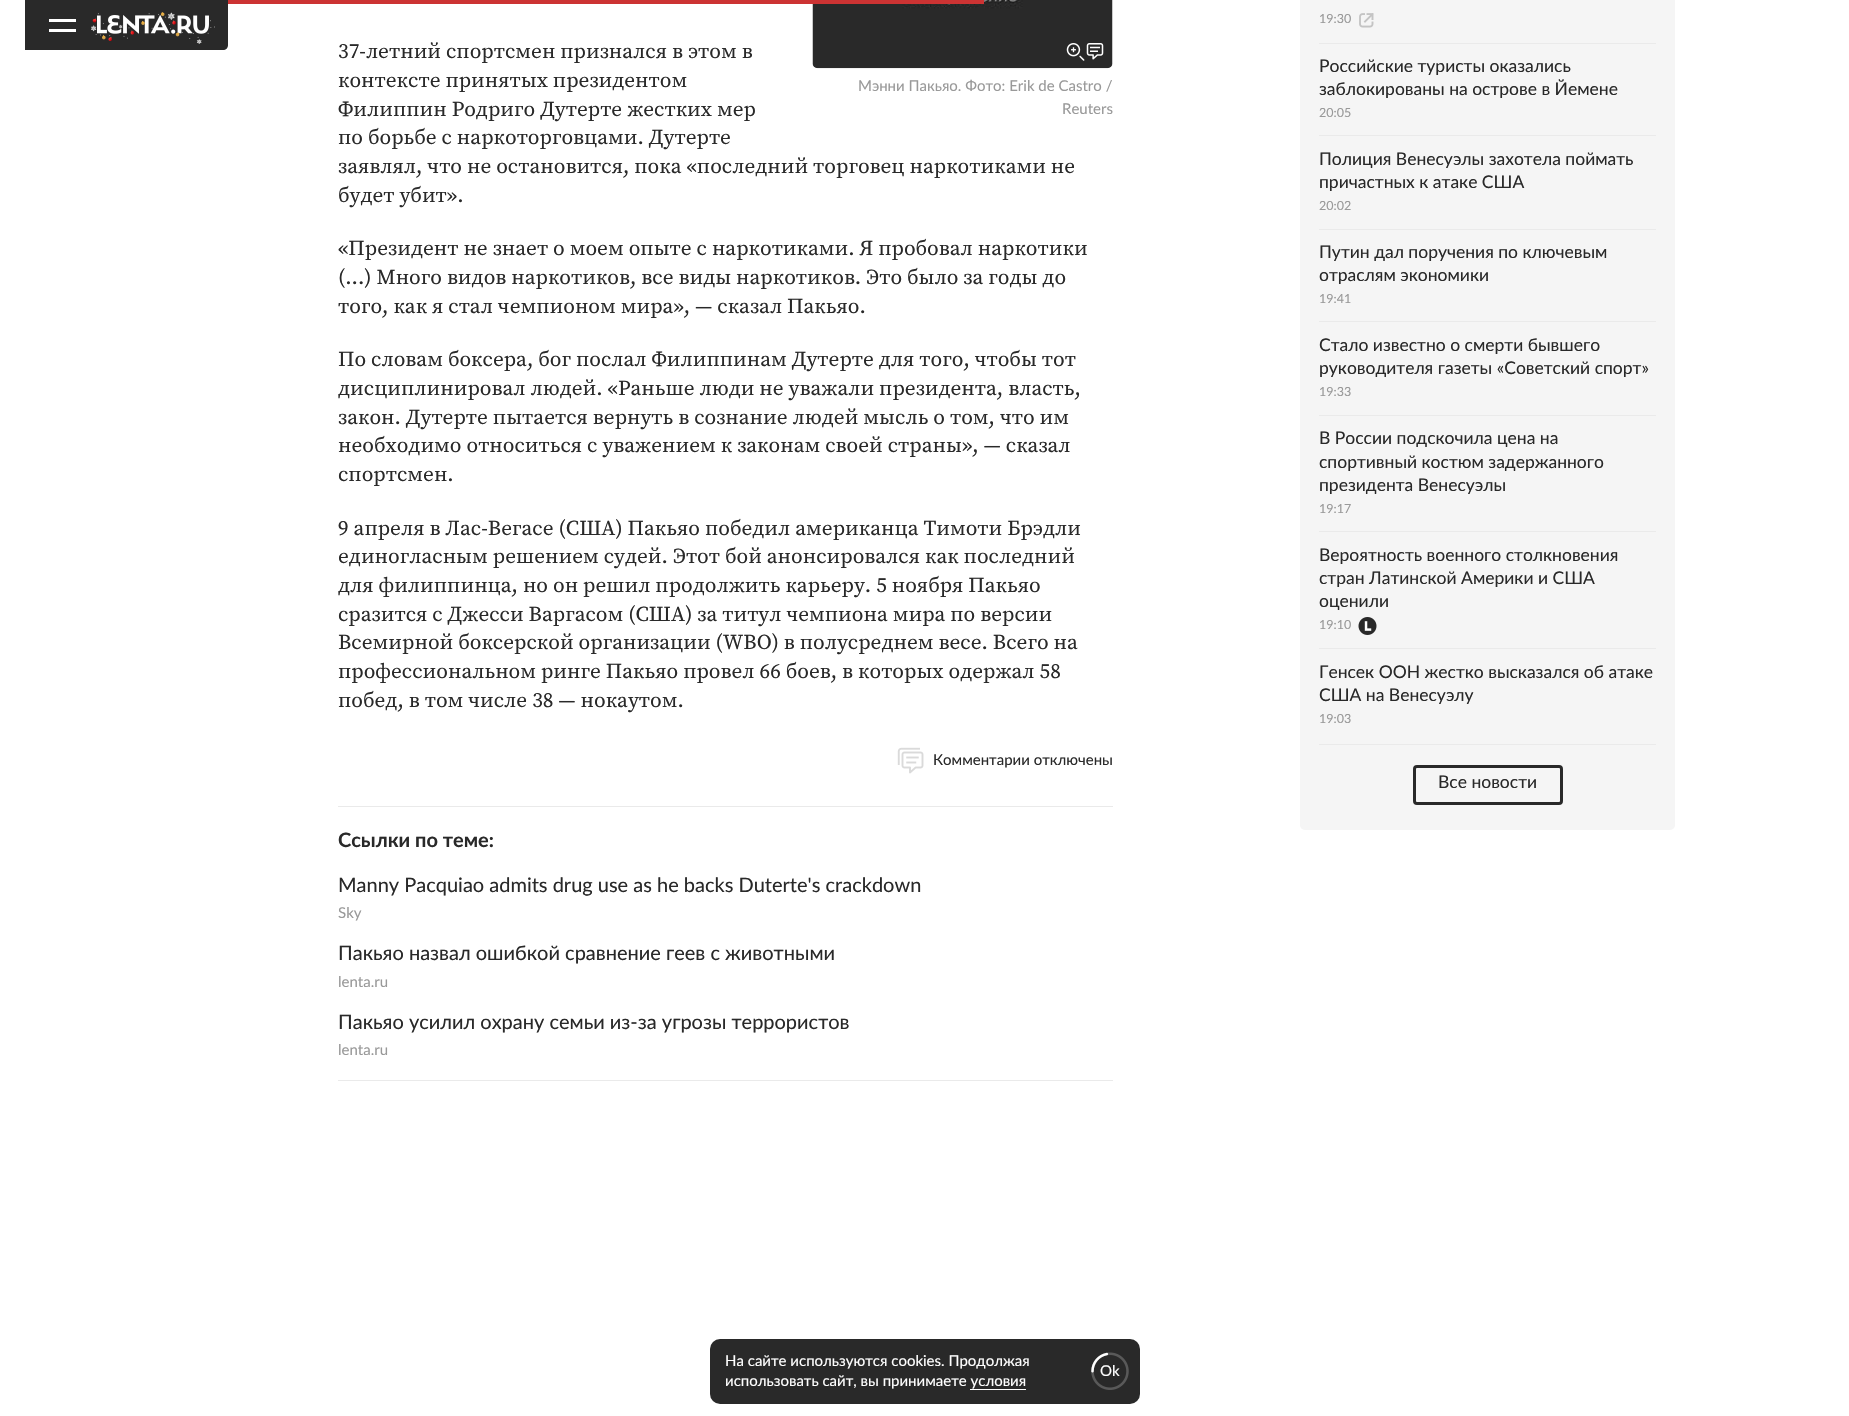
#include "include/core/SkBlurTypes.h"
#include "include/core/SkCanvas.h"
#include "include/core/SkData.h"
#include "include/core/SkFont.h"
#include "include/core/SkFontMgr.h"
#include "include/core/SkImage.h"
#include "include/core/SkMaskFilter.h"
#include "include/core/SkPaint.h"
#include "include/core/SkPathBuilder.h"
#include "include/core/SkTextBlob.h"
#include "include/effects/SkDashPathEffect.h"
#include "include/effects/SkGradientShader.h"
#include "include/utils/SkParsePath.h"

extern sk_sp<SkFontMgr> fontMgr;

void draw(SkCanvas* canvas) {
    SkPaint p;
    p.setAntiAlias(true);
    auto font = [&](const char* family, int weight, float size, bool italic = false) {
        SkFontStyle style(weight, SkFontStyle::kNormal_Width,
            italic ? SkFontStyle::kItalic_Slant : SkFontStyle::kUpright_Slant);
        SkFont result(fontMgr->matchFamilyStyle(family, style), size);
        result.setSubpixel(true);
        return result;
    };
    auto drawPhoto = [&](const char* path, float l, float t, float r, float b) {
        auto image = SkImages::DeferredFromEncodedData(SkData::MakeFromFileName(path));
        canvas->drawImageRect(image, SkRect::MakeLTRB(l, t, r, b), SkSamplingOptions());
    };
    canvas->clear(0xFFFFFFFF);
    p.setColor(0xFF292929);
    canvas->drawPath(SkPathBuilder().moveTo(25, 0).lineTo(228, 0).lineTo(228, 45).cubicTo(228, 48, 226, 50, 223, 50).lineTo(25, 50).close().detach(), p);
    p.setColor(0xFFFFFFFF);
    canvas->drawRect(SkRect::MakeLTRB(49, 19, 76, 22), p);
    canvas->drawRect(SkRect::MakeLTRB(49, 29, 76, 32), p);
    drawPhoto("media/2.png", 97, 15, 209, 34);
    drawPhoto("media/1.png", 91, 12, 215, 44);
    drawPhoto("media/3.png", 812, 0, 1113, 69);
    p.setColor(0xFFCC3333);
    canvas->drawRect(SkRect::MakeLTRB(228, 0, 984, 4), p);
    auto font1 = font("Source Serif Pro", 400, 21.25f);
    p.setColor(0xFF292929);
    {
        const struct { const char* s; float x, y; } items[] = {
            {"37-летний спортсмен признался в этом в", 338, 58},
            {"контексте принятых президентом", 338, 87},
            {"Филиппин Родриго Дутерте жестких мер", 338, 116},
            {"по борьбе с наркоторговцами. Дутерте", 338, 144},
            {"заявлял, что не остановится, пока «последний торговец наркотиками не", 338, 173},
            {"будет убит».", 338, 202},
            {"«Президент не знает о моем опыте с наркотиками. Я пробовал наркотики", 338, 255},
            {"(...) Много видов наркотиков, все виды наркотиков. Это было за годы до", 338, 284},
            {"того, как я стал чемпионом мира», — сказал Пакьяо.", 338, 313},
            {"По словам боксера, бог послал Филиппинам Дутерте для того, чтобы тот", 338, 366},
            {"дисциплинировал людей. «Раньше люди не уважали президента, власть,", 338, 395},
            {"закон. Дутерте пытается вернуть в сознание людей мысль о том, что им", 338, 424},
            {"необходимо относиться с уважением к законам своей страны», — сказал", 338, 452},
            {"спортсмен.", 338, 481},
            {"9 апреля в Лас-Вегасе (США) Пакьяо победил американца Тимоти Брэдли", 338, 535},
            {"единогласным решением судей. Этот бой анонсировался как последний", 338, 563},
            {"для филиппинца, но он решил продолжить карьеру. 5 ноября Пакьяо", 338, 592},
            {"сразится с Джесси Варгасом (США) за титул чемпиона мира по версии", 338, 621},
            {"Всемирной боксерской организации (WBO) в полусреднем весе. Всего на", 338, 649},
            {"профессиональном ринге Пакьяо провел 66 боев, в которых одержал 58", 338, 678},
            {"побед, в том числе 38 — нокаутом.", 338, 707},
        };
        for (auto [s, x, y] : items) {
            canvas->drawString(s, x, y, font1, p);
        }
    }
    drawPhoto("media/4.png", 1066, 43, 1104, 61);
    auto font2 = font("Lato", 400, 15);
    p.setColor(0xFF999999);
    canvas->drawString("Мэнни Пакьяо. Фото: Erik de Castro /", 858, 91, font2, p);
    canvas->drawString("Reuters", 1062, 114, font2, p);
    drawPhoto("media/5.png", 897, 747, 924, 774);
    p.setColor(0xFF292929);
    canvas->drawString("Комментарии отключены", 933, 765, font2, p);
    p.setColor(0xFFEAEAEA);
    canvas->drawRect(SkRect::MakeLTRB(338, 806, 1113, 807), p);
    canvas->drawRect(SkRect::MakeLTRB(338, 1080, 1113, 1081), p);
    auto font3 = font("Lato", 700, 20);
    p.setColor(0xFF292929);
    canvas->drawString("Ссылки по теме:", 338, 847, font3, p);
    auto font4 = font("Lato", 400, 20);
    canvas->drawString("Manny Pacquiao admits drug use as he backs Duterte's crackdown", 338, 892, font4, p);
    p.setColor(0xFF999999);
    canvas->drawString("Sky", 338, 918, font2, p);
    p.setColor(0xFF292929);
    canvas->drawString("Пакьяо назвал ошибкой сравнение геев с животными", 338, 960, font4, p);
    p.setColor(0xFF999999);
    canvas->drawString("lenta.ru", 338, 987, font2, p);
    p.setColor(0xFF292929);
    canvas->drawString("Пакьяо усилил охрану семьи из-за угрозы террористов", 338, 1029, font4, p);
    p.setColor(0xFF999999);
    canvas->drawString("lenta.ru", 338, 1055, font2, p);
    p.setColor(0xFFF5F5F5);
    canvas->drawRoundRect(SkRect::MakeLTRB(1300, -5, 1675, 830), 5, 5, p);
    p.setColor(0xFFEAEAEA);
    canvas->drawRect(SkRect::MakeLTRB(1319, 744, 1656, 745), p);
    canvas->drawRect(SkRect::MakeLTRB(1319, 43, 1656, 44), p);
    auto font5 = font("Lato", 400, 12.5f);
    p.setColor(0xFF999999);
    canvas->drawString("19:30", 1319, 23, font5, p);
    drawPhoto("media/6.png", 1359, 13, 1374, 28);
    p.setColor(0xFFEAEAEA);
    canvas->drawRect(SkRect::MakeLTRB(1319, 135, 1656, 136), p);
    auto font6 = font("Lato", 400, 17.5f);
    p.setColor(0xFF292929);
    canvas->drawString("Российские туристы оказались", 1319, 72, font6, p);
    canvas->drawString("заблокированы на острове в Йемене", 1319, 95, font6, p);
    p.setColor(0xFF999999);
    canvas->drawString("20:05", 1319, 117, font5, p);
    p.setColor(0xFFEAEAEA);
    canvas->drawRect(SkRect::MakeLTRB(1319, 229, 1656, 230), p);
    p.setColor(0xFF292929);
    canvas->drawString("Полиция Венесуэлы захотела поймать", 1319, 165, font6, p);
    canvas->drawString("причастных к атаке США", 1319, 188, font6, p);
    p.setColor(0xFF999999);
    canvas->drawString("20:02", 1319, 210, font5, p);
    p.setColor(0xFFEAEAEA);
    canvas->drawRect(SkRect::MakeLTRB(1319, 321, 1656, 322), p);
    p.setColor(0xFF292929);
    canvas->drawString("Путин дал поручения по ключевым", 1319, 258, font6, p);
    canvas->drawString("отраслям экономики", 1319, 281, font6, p);
    p.setColor(0xFF999999);
    canvas->drawString("19:41", 1319, 303, font5, p);
    p.setColor(0xFFEAEAEA);
    canvas->drawRect(SkRect::MakeLTRB(1319, 415, 1656, 416), p);
    p.setColor(0xFF292929);
    canvas->drawString("Стало известно о смерти бывшего", 1319, 351, font6, p);
    canvas->drawString("руководителя газеты «Советский спорт»", 1319, 374, font6, p);
    p.setColor(0xFF999999);
    canvas->drawString("19:33", 1319, 396, font5, p);
    p.setColor(0xFFEAEAEA);
    canvas->drawRect(SkRect::MakeLTRB(1319, 531, 1656, 532), p);
    p.setColor(0xFF292929);
    {
        const struct { const char* s; float x, y; } items[] = {
            {"В России подскочила цена на", 1319, 444},
            {"спортивный костюм задержанного", 1319, 468},
            {"президента Венесуэлы", 1319, 491},
        };
        for (auto [s, x, y] : items) {
            canvas->drawString(s, x, y, font6, p);
        }
    }
    p.setColor(0xFF999999);
    canvas->drawString("19:17", 1319, 513, font5, p);
    p.setColor(0xFFEAEAEA);
    canvas->drawRect(SkRect::MakeLTRB(1319, 648, 1656, 649), p);
    p.setColor(0xFF292929);
    {
        const struct { const char* s; float x, y; } items[] = {
            {"Вероятность военного столкновения", 1319, 561},
            {"стран Латинской Америки и США", 1319, 584},
            {"оценили", 1319, 607},
        };
        for (auto [s, x, y] : items) {
            canvas->drawString(s, x, y, font6, p);
        }
    }
    p.setColor(0xFF999999);
    canvas->drawString("19:10", 1319, 629, font5, p);
    drawPhoto("media/7.png", 1358, 617, 1377, 635);
    p.setColor(0xFF292929);
    canvas->drawString("Генсек ООН жестко высказался об атаке", 1319, 678, font6, p);
    canvas->drawString("США на Венесуэлу", 1319, 701, font6, p);
    p.setColor(0xFF999999);
    canvas->drawString("19:03", 1319, 723, font5, p);
    p.setStyle(SkPaint::kStroke_Style);
    p.setStrokeWidth(3);
    p.setColor(0xFF292929);
    canvas->drawRoundRect(SkRect::MakeLTRB(1414.5f, 766.5f, 1561.5f, 803.5f), 2.5f, 2.5f, p);
    p.setStyle(SkPaint::kFill_Style);
    canvas->drawString("Все новости", 1438, 788, font6, p);
    canvas->drawRoundRect(SkRect::MakeLTRB(710, 1339, 1140, 1404), 10, 10, p);
    p.setColor(0xFFFFFFFF);
    canvas->drawString("На сайте используются cookies. Продолжая", 725, 1366, font2, p);
    canvas->drawString("использовать сайт, вы принимаете условия", 725, 1386, font2, p);
    canvas->drawRect(SkRect::MakeLTRB(970, 1389, 1026, 1390), p);
    canvas->drawString("Ok", 1100, 1376, font2, p);
    drawPhoto("media/8.png", 1091, 1352, 1129, 1390);
}
